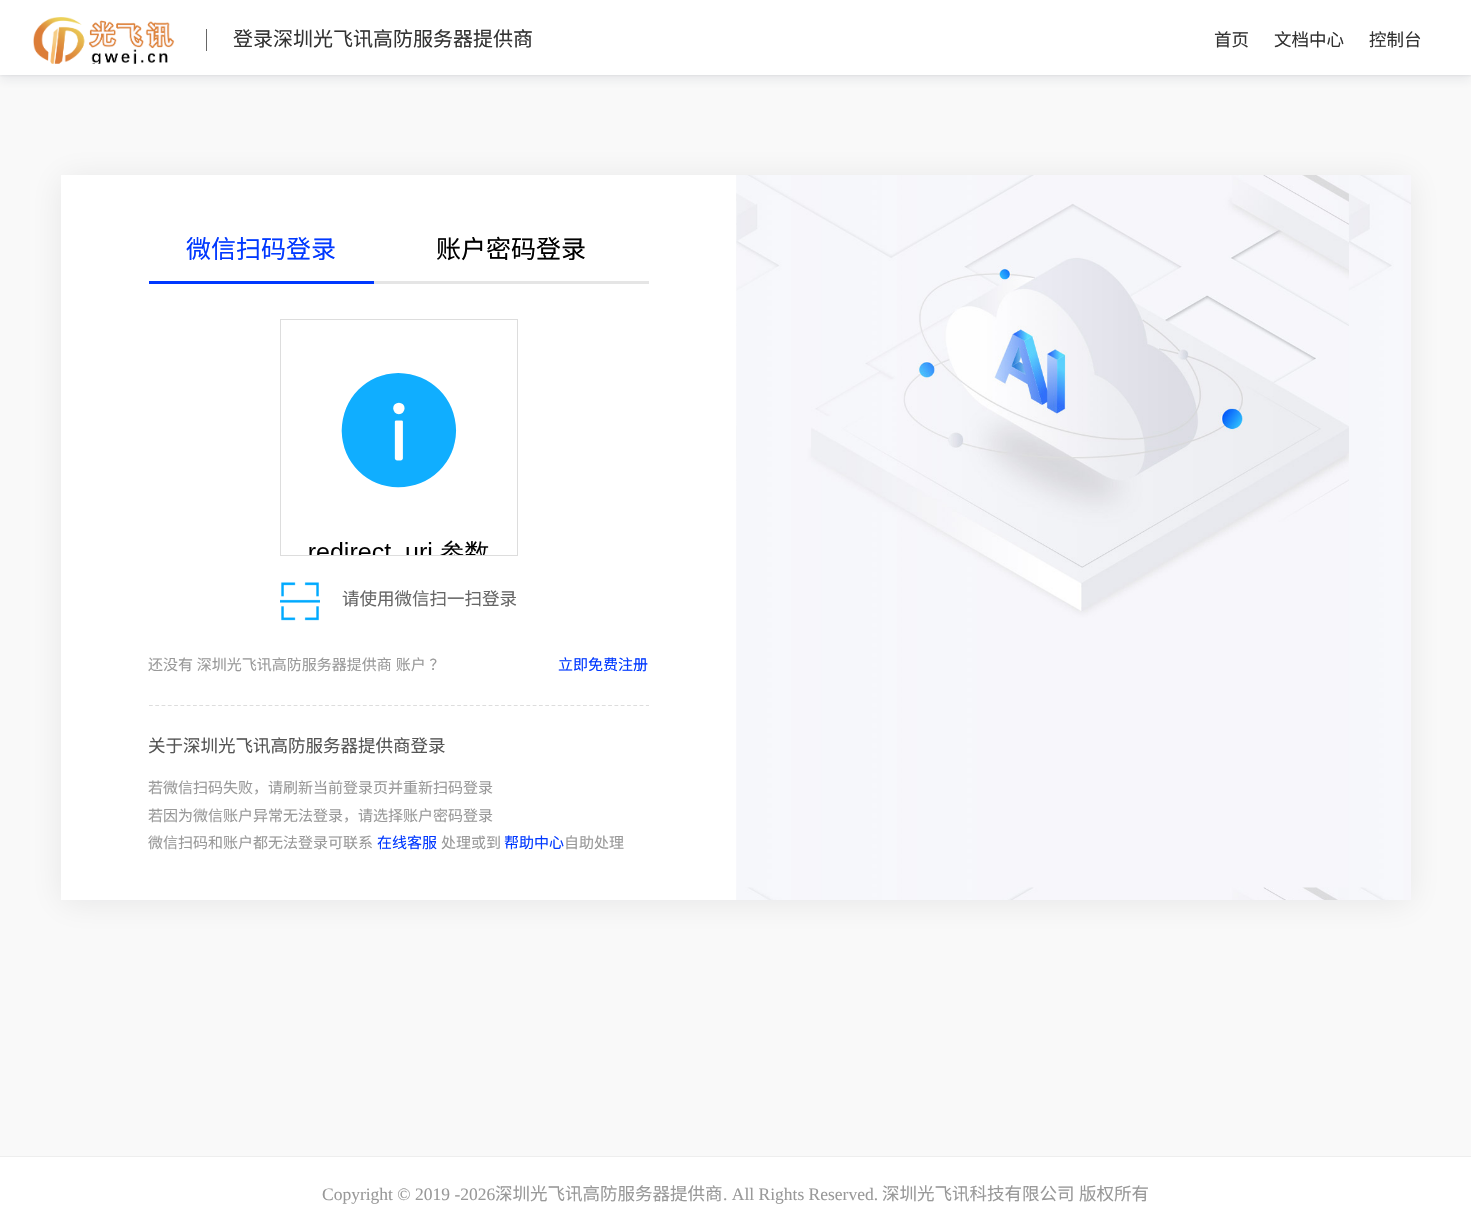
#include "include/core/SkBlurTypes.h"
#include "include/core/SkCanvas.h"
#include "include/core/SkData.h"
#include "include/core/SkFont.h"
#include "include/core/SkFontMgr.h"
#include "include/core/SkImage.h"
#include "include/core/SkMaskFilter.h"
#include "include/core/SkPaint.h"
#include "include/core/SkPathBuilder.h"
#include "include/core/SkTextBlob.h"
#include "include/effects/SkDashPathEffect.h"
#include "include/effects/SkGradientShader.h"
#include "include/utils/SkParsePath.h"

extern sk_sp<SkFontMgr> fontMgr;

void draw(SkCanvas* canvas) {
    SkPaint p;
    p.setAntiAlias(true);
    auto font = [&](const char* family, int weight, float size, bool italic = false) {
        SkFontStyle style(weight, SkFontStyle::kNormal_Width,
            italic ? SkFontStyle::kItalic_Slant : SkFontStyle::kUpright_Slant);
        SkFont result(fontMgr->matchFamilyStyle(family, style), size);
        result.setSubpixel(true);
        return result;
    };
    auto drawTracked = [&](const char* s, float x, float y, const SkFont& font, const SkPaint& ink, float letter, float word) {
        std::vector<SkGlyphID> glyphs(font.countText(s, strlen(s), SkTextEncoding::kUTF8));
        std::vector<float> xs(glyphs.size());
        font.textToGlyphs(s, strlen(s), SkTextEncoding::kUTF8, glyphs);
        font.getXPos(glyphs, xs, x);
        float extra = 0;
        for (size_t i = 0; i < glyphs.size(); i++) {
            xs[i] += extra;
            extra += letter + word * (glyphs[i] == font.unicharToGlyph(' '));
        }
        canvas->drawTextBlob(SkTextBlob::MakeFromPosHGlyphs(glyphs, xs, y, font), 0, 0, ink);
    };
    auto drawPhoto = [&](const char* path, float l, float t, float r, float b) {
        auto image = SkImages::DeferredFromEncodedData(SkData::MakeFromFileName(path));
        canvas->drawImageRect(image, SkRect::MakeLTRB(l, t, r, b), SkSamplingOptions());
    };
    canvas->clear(0xFFF9F9F9);
    p.setColor(0x14273849);
    p.setMaskFilter(SkMaskFilter::MakeBlur(kNormal_SkBlurStyle, 5));
    canvas->drawRect(SkRect::MakeLTRB(0, 5, 1471, 80), p);
    p.setMaskFilter(nullptr);
    p.setColor(0x0F09121A);
    p.setMaskFilter(SkMaskFilter::MakeBlur(kNormal_SkBlurStyle, 1));
    canvas->drawRect(SkRect::MakeLTRB(0, 1, 1471, 76), p);
    p.setMaskFilter(nullptr);
    p.setColor(0xFFFFFFFF);
    canvas->drawRect(SkRect::MakeLTRB(0, 0, 1471, 75), p);
    drawPhoto("media/1.png", 33, 17, 175, 64);
    p.setColor(0xFF666666);
    canvas->drawRect(SkRect::MakeLTRB(206, 29, 207, 51), p);
    auto font1 = font("Noto Sans CJK SC", 400, 20);
    p.setColor(0xFF333333);
    canvas->drawString("登录深圳光飞讯高防服务器提供商", 233, 46, font1, p);
    auto font2 = font("Noto Sans CJK SC", 400, 17.5f);
    {
        const struct { const char* s; float x, y; } items[] = {
            {"首页", 1214, 46},
            {"文档中心", 1274, 46},
            {"控制台", 1369, 46},
        };
        for (auto [s, x, y] : items) {
            canvas->drawString(s, x, y, font2, p);
        }
    }
    p.setColor(0x1409121A);
    p.setMaskFilter(SkMaskFilter::MakeBlur(kNormal_SkBlurStyle, 15.5f));
    canvas->drawRect(SkRect::MakeLTRB(61, 178, 1411, 903), p);
    p.setMaskFilter(nullptr);
    p.setColor(0xFFFFFFFF);
    canvas->drawRect(SkRect::MakeLTRB(61, 175, 737, 900), p);
    p.setColor(0xFF0038FF);
    canvas->drawRect(SkRect::MakeLTRB(149, 281, 374, 284), p);
    auto font3 = font("Noto Sans CJK SC", 400, 25);
    canvas->drawString("微信扫码登录", 186, 258, font3, p);
    p.setColor(0xFFE5E5E5);
    canvas->drawRect(SkRect::MakeLTRB(374, 281, 649, 284), p);
    p.setColor(0xFF000000);
    canvas->drawString("账户密码登录", 436, 258, font3, p);
    p.setStyle(SkPaint::kStroke_Style);
    p.setStrokeWidth(1);
    p.setColor(0xFFDDDDDD);
    canvas->drawRect(SkRect::MakeLTRB(280.5f, 319.5f, 517.5f, 555.5f), p);
    drawPhoto("media/2.png", 309, 373, 489, 555);
    drawPhoto("media/3.png", 280, 582, 320, 621);
    p.setStyle(SkPaint::kFill_Style);
    p.setColor(0xFF666666);
    canvas->drawString("请使用微信扫一扫登录", 342, 605, font2, p);
    auto font4 = font("Noto Sans CJK SC", 400, 15);
    p.setColor(0xFF999999);
    drawTracked("还没有 深圳光飞讯高防服务器提供商 账户 ？", 148, 670, font4, p, 0, 0.5f);
    p.setColor(0xFF0038FF);
    canvas->drawString("立即免费注册", 558, 670, font4, p);
    p.setStyle(SkPaint::kStroke_Style);
    p.setStrokeWidth(1.2f);
    p.setColor(0xFFDDDDDD);
    p.setPathEffect(SkDashPathEffect::Make({{3.75f, 2.54f}}, 0));
    canvas->drawPath(SkPathBuilder().moveTo(149, 705.5f).lineTo(649, 705.5f).detach(), p);
    p.setPathEffect(nullptr);
    p.setStyle(SkPaint::kFill_Style);
    p.setColor(0xFF555555);
    canvas->drawString("关于深圳光飞讯高防服务器提供商登录", 148, 752, font2, p);
    p.setColor(0xFF999999);
    {
        const struct { const char* s; float x, y; } items[] = {
            {"若微信扫码失败，请刷新当前登录页并重新扫码登录", 148, 793},
            {"若因为微信账户异常无法登录，请选择账户密码登录", 148, 821},
            {"微信扫码和账户都无法登录可联系", 148, 848},
        };
        for (auto [s, x, y] : items) {
            canvas->drawString(s, x, y, font4, p);
        }
    }
    p.setColor(0xFF0038FF);
    canvas->drawString("在线客服", 377, 848, font4, p);
    p.setColor(0xFF999999);
    canvas->drawString("处理或到", 441, 848, font4, p);
    p.setColor(0xFF0038FF);
    canvas->drawString("帮助中心", 504, 848, font4, p);
    p.setColor(0xFF999999);
    canvas->drawString("自助处理", 564, 848, font4, p);
    drawPhoto("media/4.png", 736, 175, 1411, 900);
    p.setColor(0xFFFFFFFF);
    canvas->drawRect(SkRect::MakeLTRB(0, 1157, 1471, 1231), p);
    p.setColor(0xFFEEEEEE);
    canvas->drawRect(SkRect::MakeLTRB(0, 1156, 1471, 1157), p);
    auto font5 = font("Liberation Serif", 400, 17.5f);
    p.setColor(0xFF999999);
    canvas->drawString("Copyright © 2019 -2026", 322, 1200, font5, p);
    canvas->drawString("深圳光飞讯高防服务器提供商", 495, 1200, font2, p);
    canvas->drawString(". All Rights Reserved.", 723, 1200, font5, p);
    canvas->drawString("深圳光飞讯科技有限公司", 882, 1200, font2, p);
    canvas->drawString("版权所有", 1079, 1200, font2, p);
}
